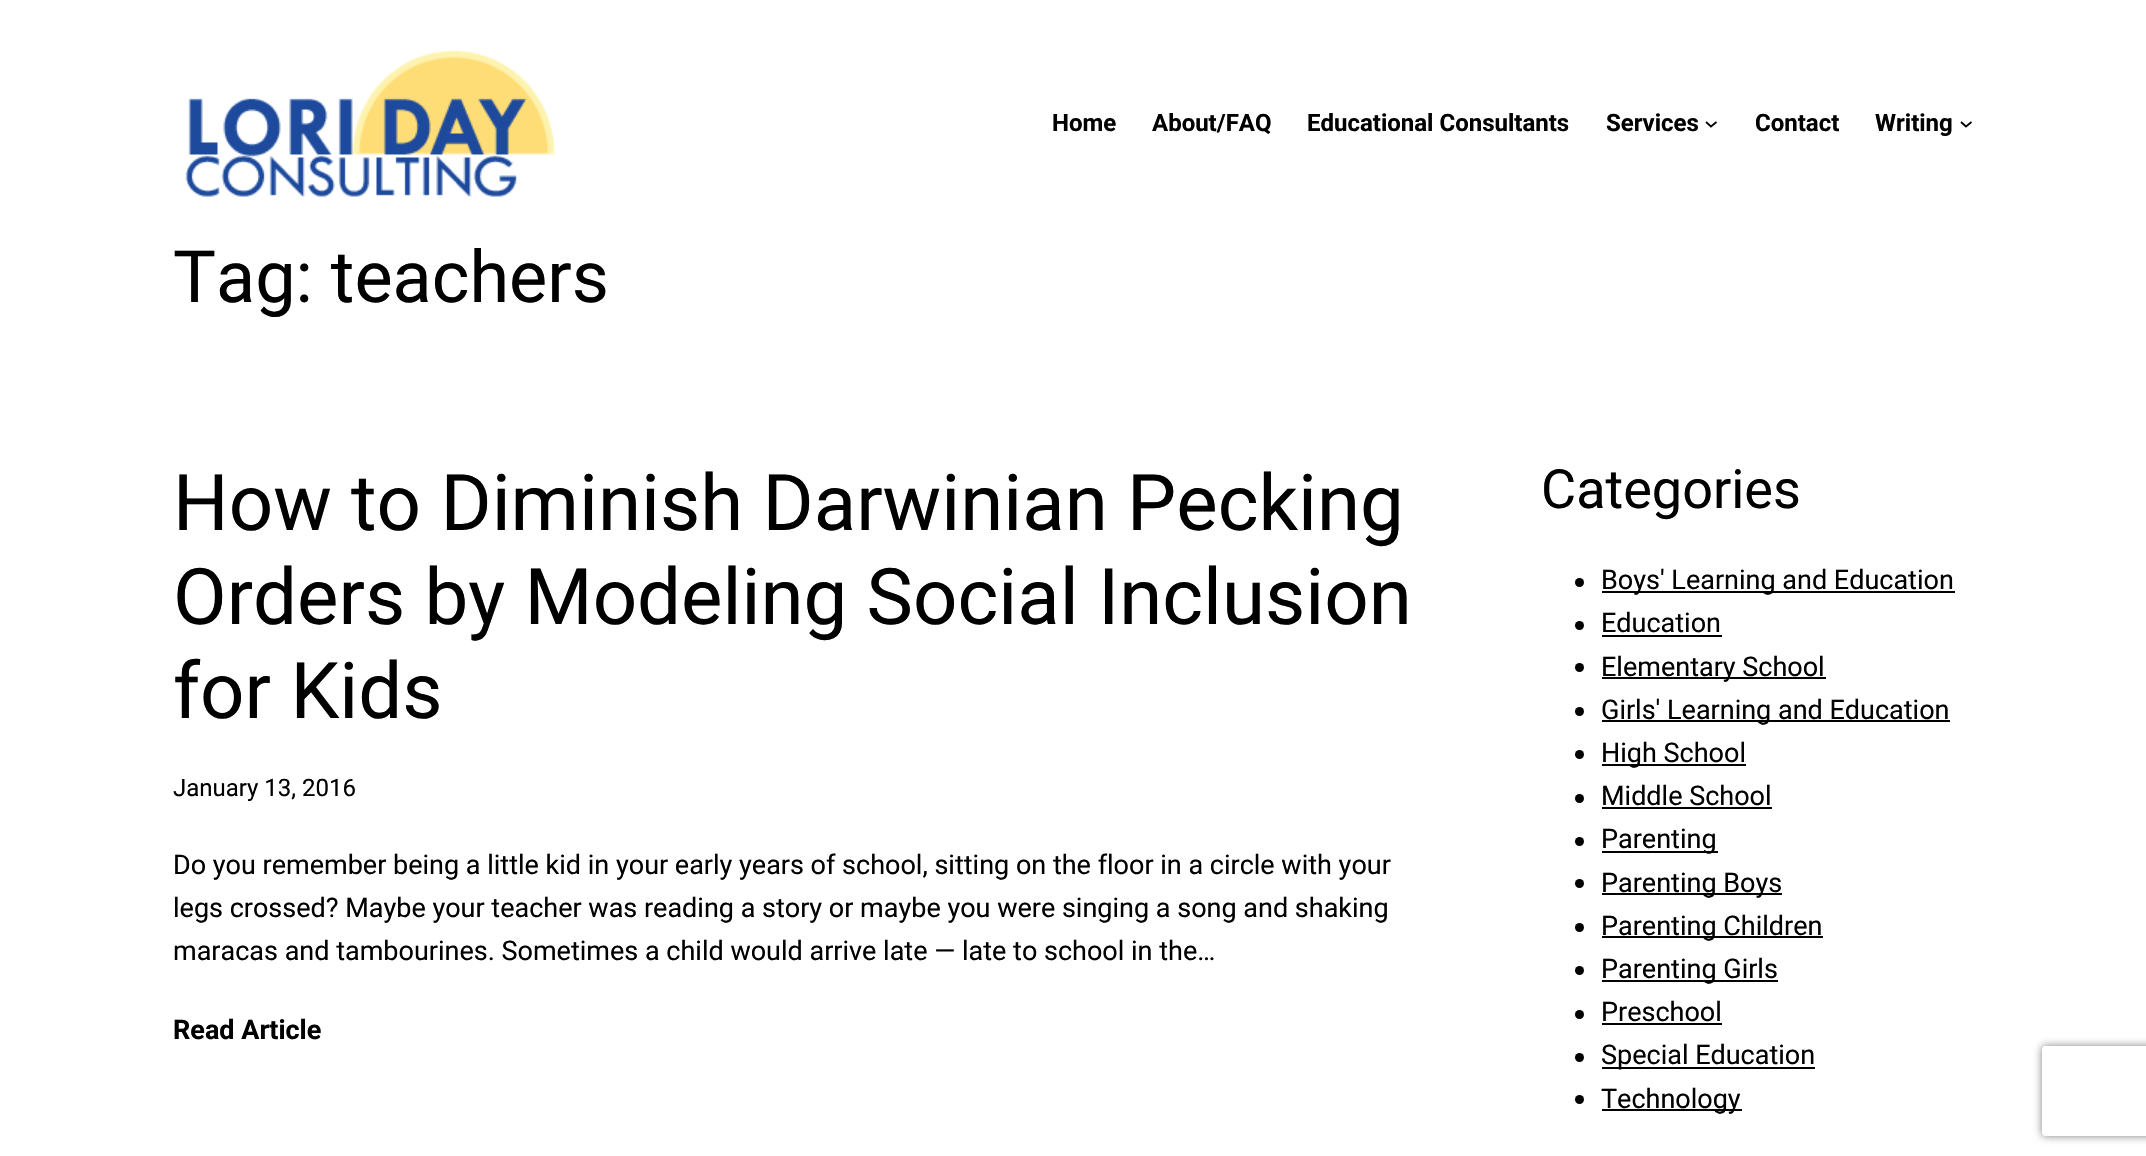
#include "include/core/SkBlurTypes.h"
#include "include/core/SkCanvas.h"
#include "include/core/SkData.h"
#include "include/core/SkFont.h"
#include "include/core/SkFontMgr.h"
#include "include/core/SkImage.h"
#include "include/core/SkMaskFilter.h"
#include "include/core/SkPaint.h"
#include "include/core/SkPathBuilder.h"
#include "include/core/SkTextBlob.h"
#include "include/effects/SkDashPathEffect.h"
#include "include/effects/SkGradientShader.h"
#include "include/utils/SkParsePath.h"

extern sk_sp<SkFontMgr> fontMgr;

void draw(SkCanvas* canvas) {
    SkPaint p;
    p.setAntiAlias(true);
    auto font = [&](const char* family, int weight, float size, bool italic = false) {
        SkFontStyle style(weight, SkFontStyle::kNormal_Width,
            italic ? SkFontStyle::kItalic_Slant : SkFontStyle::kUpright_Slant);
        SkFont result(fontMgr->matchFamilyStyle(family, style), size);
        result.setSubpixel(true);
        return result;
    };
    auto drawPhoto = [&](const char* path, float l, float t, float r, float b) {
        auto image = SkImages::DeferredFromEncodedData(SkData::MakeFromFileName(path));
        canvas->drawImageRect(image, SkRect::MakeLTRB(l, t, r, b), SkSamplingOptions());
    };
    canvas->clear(0xFFFFFFFF);
    drawPhoto("media/1.png", 185, 50, 556, 197);
    auto font1 = font("Roboto", 700, 24);
    p.setColor(0xFF000000);
    {
        const struct { const char* s; float x, y; } items[] = {
            {"Home", 1052, 131},
            {"About/FAQ", 1152, 131},
            {"Educational Consultants", 1307, 131},
            {"Services", 1606, 131},
        };
        for (auto [s, x, y] : items) {
            canvas->drawString(s, x, y, font1, p);
        }
    }
    p.setStyle(SkPaint::kStroke_Style);
    p.setStrokeWidth(1.8f);
    canvas->drawPath(SkPathBuilder().moveTo(1706, 122).lineTo(1711, 126.5f).lineTo(1716.5f, 122).detach(), p);
    p.setStyle(SkPaint::kFill_Style);
    canvas->drawString("Contact", 1755, 131, font1, p);
    canvas->drawString("Writing", 1875, 131, font1, p);
    p.setStyle(SkPaint::kStroke_Style);
    canvas->drawPath(SkPathBuilder().moveTo(1961, 122).lineTo(1966, 126.5f).lineTo(1971.5f, 122).detach(), p);
    auto font2 = font("Roboto", 400, 72);
    p.setStyle(SkPaint::kFill_Style);
    canvas->drawString("Tag: teachers", 173, 302, font2, p);
    auto font3 = font("Roboto", 400, 78);
    {
        const struct { const char* s; float x, y; } items[] = {
            {"How to Diminish Darwinian Pecking", 173, 530},
            {"Orders by Modeling Social Inclusion", 173, 624},
            {"for Kids", 173, 718},
        };
        for (auto [s, x, y] : items) {
            canvas->drawString(s, x, y, font3, p);
        }
    }
    auto font4 = font("Roboto", 400, 24);
    canvas->drawString("January 13, 2016", 173, 796, font4, p);
    auto font5 = font("Roboto", 400, 27);
    {
        const struct { const char* s; float x, y; } items[] = {
            {"Do you remember being a little kid in your early years of school, sitting on the floor in a circle with your", 173, 874},
            {"legs crossed? Maybe your teacher was reading a story or maybe you were singing a song and shaking", 173, 917},
            {"maracas and tambourines. Sometimes a child would arrive late — late to school in the…", 173, 960},
        };
        for (auto [s, x, y] : items) {
            canvas->drawString(s, x, y, font5, p);
        }
    }
    auto font6 = font("Roboto", 700, 27);
    canvas->drawString("Read Article", 173, 1039, font6, p);
    auto font7 = font("Roboto", 400, 54);
    canvas->drawString("Categories", 1541, 508, font7, p);
    canvas->drawCircle(1579.5f, 582.5f, 4.5f, p);
    canvas->drawRect(SkRect::MakeLTRB(1602, 591, 1955, 593), p);
    canvas->drawString("Boys' Learning and Education", 1601, 589, font5, p);
    canvas->drawCircle(1579.5f, 625.5f, 4.5f, p);
    canvas->drawString("Education", 1601, 632, font5, p);
    canvas->drawRect(SkRect::MakeLTRB(1602, 635, 1722, 637), p);
    canvas->drawCircle(1579.5f, 667.5f, 4.5f, p);
    canvas->drawRect(SkRect::MakeLTRB(1602, 677, 1826, 679), p);
    canvas->drawString("Elementary School", 1601, 676, font5, p);
    canvas->drawCircle(1579.5f, 711.5f, 4.5f, p);
    canvas->drawRect(SkRect::MakeLTRB(1602, 720, 1950, 722), p);
    canvas->drawString("Girls' Learning and Education", 1601, 719, font5, p);
    canvas->drawCircle(1579.5f, 754.5f, 4.5f, p);
    canvas->drawRect(SkRect::MakeLTRB(1602, 764, 1746, 766), p);
    canvas->drawString("High School", 1601, 762, font5, p);
    canvas->drawCircle(1579.5f, 798.5f, 4.5f, p);
    canvas->drawString("Middle School", 1601, 805, font5, p);
    canvas->drawRect(SkRect::MakeLTRB(1602, 807, 1772, 809), p);
    canvas->drawCircle(1579.5f, 841.5f, 4.5f, p);
    canvas->drawRect(SkRect::MakeLTRB(1602, 851, 1718, 853), p);
    canvas->drawString("Parenting", 1601, 848, font5, p);
    canvas->drawCircle(1579.5f, 883.5f, 4.5f, p);
    canvas->drawRect(SkRect::MakeLTRB(1602, 893, 1782, 895), p);
    canvas->drawString("Parenting Boys", 1601, 892, font5, p);
    canvas->drawCircle(1579.5f, 927.5f, 4.5f, p);
    canvas->drawRect(SkRect::MakeLTRB(1602, 936, 1823, 938), p);
    canvas->drawString("Parenting Children", 1601, 935, font5, p);
    canvas->drawCircle(1579.5f, 970.5f, 4.5f, p);
    canvas->drawRect(SkRect::MakeLTRB(1602, 980, 1778, 982), p);
    canvas->drawString("Parenting Girls", 1601, 978, font5, p);
    canvas->drawCircle(1579.5f, 1014.5f, 4.5f, p);
    canvas->drawString("Preschool", 1601, 1021, font5, p);
    canvas->drawRect(SkRect::MakeLTRB(1602, 1023, 1722, 1025), p);
    canvas->drawCircle(1579.5f, 1057.5f, 4.5f, p);
    canvas->drawRect(SkRect::MakeLTRB(1602, 1067, 1815, 1069), p);
    canvas->drawString("Special Education", 1601, 1064, font5, p);
    canvas->drawCircle(1579.5f, 1099.5f, 4.5f, p);
    canvas->drawRect(SkRect::MakeLTRB(1602, 1109, 1742, 1111), p);
    canvas->drawString("Technology", 1601, 1108, font5, p);
    canvas->save();
    canvas->clipPath(SkPathBuilder(SkPathFillType::kEvenOdd).moveTo(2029, 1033).lineTo(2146, 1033).lineTo(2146, 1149).lineTo(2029, 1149).close().moveTo(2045, 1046).lineTo(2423, 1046).cubicTo(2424.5f, 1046, 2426, 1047.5f, 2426, 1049).lineTo(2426, 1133).cubicTo(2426, 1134.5f, 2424.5f, 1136, 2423, 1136).lineTo(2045, 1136).cubicTo(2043.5f, 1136, 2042, 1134.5f, 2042, 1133).lineTo(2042, 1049).cubicTo(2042, 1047.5f, 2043.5f, 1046, 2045, 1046).close().detach(), true);
    p.setColor(0xFF808080);
    p.setMaskFilter(SkMaskFilter::MakeBlur(kNormal_SkBlurStyle, 4));
    canvas->drawRoundRect(SkRect::MakeLTRB(2042, 1046, 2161, 1136), 3, 3, p);
    p.setMaskFilter(nullptr);
    canvas->restore();
}
